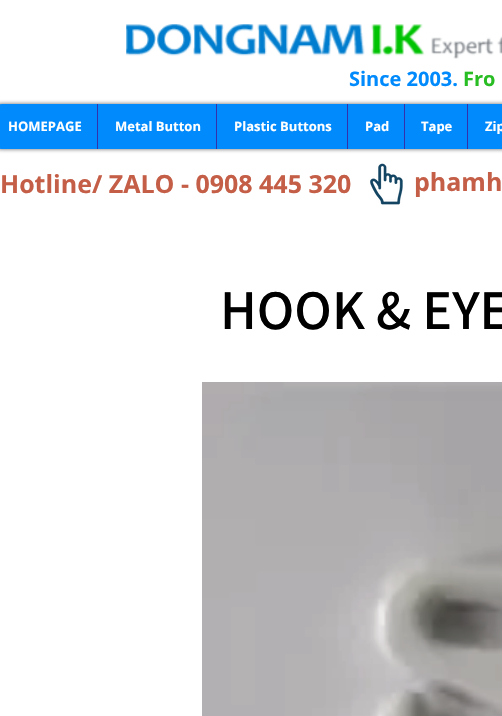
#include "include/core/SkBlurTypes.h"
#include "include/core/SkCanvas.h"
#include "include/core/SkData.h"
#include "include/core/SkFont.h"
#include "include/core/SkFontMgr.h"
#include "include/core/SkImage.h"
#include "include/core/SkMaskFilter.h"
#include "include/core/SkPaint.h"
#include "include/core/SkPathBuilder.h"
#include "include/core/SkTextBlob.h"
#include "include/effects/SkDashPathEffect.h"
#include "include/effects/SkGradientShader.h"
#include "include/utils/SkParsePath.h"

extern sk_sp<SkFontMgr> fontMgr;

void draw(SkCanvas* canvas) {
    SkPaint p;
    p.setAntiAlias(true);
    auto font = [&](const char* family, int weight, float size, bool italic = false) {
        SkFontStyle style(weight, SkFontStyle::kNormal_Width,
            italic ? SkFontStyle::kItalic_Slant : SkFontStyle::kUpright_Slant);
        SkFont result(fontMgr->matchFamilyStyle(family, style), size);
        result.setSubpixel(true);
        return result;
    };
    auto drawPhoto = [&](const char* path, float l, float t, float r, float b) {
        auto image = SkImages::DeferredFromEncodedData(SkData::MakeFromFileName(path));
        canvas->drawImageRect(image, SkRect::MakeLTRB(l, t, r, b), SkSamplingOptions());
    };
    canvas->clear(0xFFFFFFFF);
    drawPhoto("media/1.png", 126, 24, 502, 59);
    auto font1 = font("Open Sans", 700, 20);
    p.setColor(0xFF008AFC);
    canvas->drawString("Since 2003.", 349, 86, font1, p);
    p.setColor(0xFF29BD24);
    canvas->drawString("Fro", 463, 86, font1, p);
    p.setColor(0x99000000);
    p.setMaskFilter(SkMaskFilter::MakeBlur(kNormal_SkBlurStyle, 2));
    canvas->drawRoundRect(SkRect::MakeLTRB(-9, 104, 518, 149), 10, 10, p);
    p.setMaskFilter(nullptr);
    p.setColor(0xFF008AFC);
    canvas->drawRoundRect(SkRect::MakeLTRB(-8, 104, 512, 149), 10, 10, p);
    auto font2 = font("Open Sans", 700, 13);
    p.setColor(0xFFFFFFFF);
    canvas->drawString("HOMEPAGE", 8, 131, font2, p);
    p.setColor(0xFF3431AA);
    canvas->drawRect(SkRect::MakeLTRB(97, 104, 98, 149), p);
    p.setColor(0xFFFFFFFF);
    canvas->drawString("Metal Button", 115, 131, font2, p);
    p.setColor(0xFF3431AA);
    canvas->drawRect(SkRect::MakeLTRB(216, 104, 217, 149), p);
    p.setColor(0xFFFFFFFF);
    canvas->drawString("Plastic Buttons", 234, 131, font2, p);
    p.setColor(0xFF3431AA);
    canvas->drawRect(SkRect::MakeLTRB(347, 104, 348, 149), p);
    p.setColor(0xFFFFFFFF);
    canvas->drawString("Pad", 365, 131, font2, p);
    p.setColor(0xFF3431AA);
    canvas->drawRect(SkRect::MakeLTRB(404, 104, 405, 149), p);
    p.setColor(0xFFFFFFFF);
    canvas->drawString("Tape", 421, 131, font2, p);
    p.setColor(0xFF3431AA);
    canvas->drawRect(SkRect::MakeLTRB(467, 104, 468, 149), p);
    p.setColor(0xFFFFFFFF);
    canvas->drawString("Zip", 485, 131, font2, p);
    auto font3 = font("Open Sans", 700, 25);
    p.setColor(0xFFC45E47);
    canvas->drawString("Hotline/ ZALO - 0908 445 320", 0, 193, font3, p);
    drawPhoto("media/2.png", 370, 163, 403, 205);
    canvas->drawString("phamh", 414, 191, font3, p);
    auto font4 = font("Assistant", 600, 56);
    p.setColor(0xFF000000);
    canvas->drawString("HOOK & EYE", 220, 329, font4, p);
    drawPhoto("media/3.png", 202, 382, 502, 716);
}
